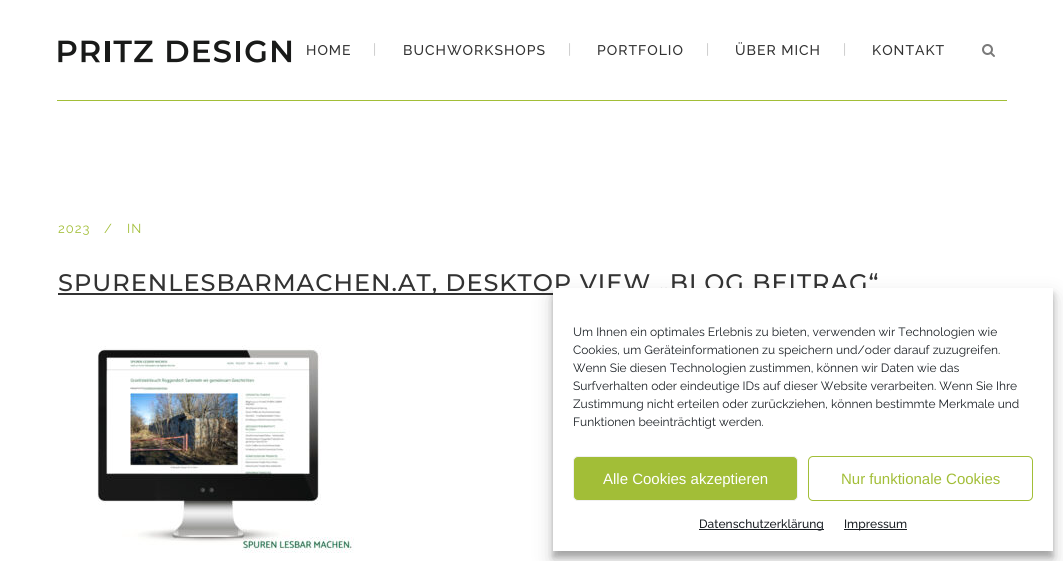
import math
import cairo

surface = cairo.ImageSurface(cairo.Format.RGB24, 1063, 561)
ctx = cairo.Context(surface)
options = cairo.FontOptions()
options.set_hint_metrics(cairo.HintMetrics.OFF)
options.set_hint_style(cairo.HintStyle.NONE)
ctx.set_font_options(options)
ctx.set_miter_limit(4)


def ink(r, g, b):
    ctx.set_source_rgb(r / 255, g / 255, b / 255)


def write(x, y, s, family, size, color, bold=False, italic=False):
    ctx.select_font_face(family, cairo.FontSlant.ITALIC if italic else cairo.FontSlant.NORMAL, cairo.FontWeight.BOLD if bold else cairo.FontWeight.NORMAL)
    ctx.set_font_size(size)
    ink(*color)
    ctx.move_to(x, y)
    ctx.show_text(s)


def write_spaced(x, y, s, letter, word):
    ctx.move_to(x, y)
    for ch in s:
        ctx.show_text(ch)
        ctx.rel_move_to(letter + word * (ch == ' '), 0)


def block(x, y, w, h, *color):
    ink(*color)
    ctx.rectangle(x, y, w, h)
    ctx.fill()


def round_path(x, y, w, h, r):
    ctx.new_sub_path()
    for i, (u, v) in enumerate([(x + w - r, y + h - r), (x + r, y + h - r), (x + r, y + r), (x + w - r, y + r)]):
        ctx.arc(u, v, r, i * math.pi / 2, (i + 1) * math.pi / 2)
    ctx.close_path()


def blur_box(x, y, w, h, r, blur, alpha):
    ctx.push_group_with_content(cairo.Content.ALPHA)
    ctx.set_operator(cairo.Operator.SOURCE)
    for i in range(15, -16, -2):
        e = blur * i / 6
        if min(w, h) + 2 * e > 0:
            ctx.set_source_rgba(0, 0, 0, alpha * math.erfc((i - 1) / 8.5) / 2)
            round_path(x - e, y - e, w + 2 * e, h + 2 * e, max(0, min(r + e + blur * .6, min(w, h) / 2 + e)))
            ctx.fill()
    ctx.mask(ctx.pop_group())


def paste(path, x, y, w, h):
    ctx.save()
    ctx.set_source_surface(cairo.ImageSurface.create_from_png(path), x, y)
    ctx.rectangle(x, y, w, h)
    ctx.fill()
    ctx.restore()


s1 = dict(family="Raleway Thin", size=14, color=(196, 196, 196))
s2 = dict(family="Raleway Thin", size=12, color=(25, 30, 35))
s3 = dict(family="Liberation Sans", size=15, color=(255, 255, 255))
s4 = dict(family="Liberation Sans", size=15, color=(162, 190, 55))
s5 = dict(family="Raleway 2 Thin", size=12, color=(25, 30, 35))

ink(255, 255, 255)
ctx.paint()
block(57, 100, 950, 1, 162, 190, 55)
paste("pic1.png", 58, 40, 234, 23)
ctx.select_font_face("Raleway 2 Thin")
ctx.set_font_size(14)
ink(51, 51, 51)
write_spaced(306, 55, "HOME", 1, 0)
write(373, 54, "|", **s1)
ctx.select_font_face("Raleway 2 Thin")
ink(51, 51, 51)
write_spaced(403, 55, "BUCHWORKSHOPS", 1, 0)
write(568, 54, "|", **s1)
ctx.select_font_face("Raleway 2 Thin")
ink(51, 51, 51)
write_spaced(597, 55, "PORTFOLIO", 1, 0)
write(706, 54, "|", **s1)
ctx.select_font_face("Raleway 2 Thin")
ink(51, 51, 51)
write_spaced(735, 55, "ÜBER MICH", 1, 0)
write(843, 54, "|", **s1)
ctx.select_font_face("Raleway 2 Thin")
ink(51, 51, 51)
write_spaced(872, 55, "KONTAKT", 1, 0)
paste("pic2.png", 982, 44, 13, 13)
ctx.select_font_face("Raleway Thin")
ctx.set_font_size(13)
ink(162, 190, 55)
write_spaced(58, 233, "2023", 1, 0)
write_spaced(104, 233, "/", 1, 0)
write_spaced(127, 233, "IN", 1, 0)
block(58, 293, 495, 2, 51, 51, 51)
ctx.select_font_face("Montserrat Thin")
ctx.set_font_size(24)
write_spaced(58, 291, "SPURENLESBARMACHEN.AT, DESKTOP VIEW „BLOG BEITRAG“", 1, 0)
paste("pic3.png", 97, 345, 257, 208)
ink(0, 0, 0)
blur_box(553, 294, 500, 263, 0, 3, 0.23)
blur_box(553, 298, 500, 263, 0, 10, 0.19)
block(553, 288, 500, 263, 255, 255, 255)
write(573, 336, "Um Ihnen ein optimales Erlebnis zu bieten, verwenden wir Technologien wie", **s2)
write(573, 354, "Cookies, um Geräteinformationen zu speichern und/oder darauf zuzugreifen.", **s2)
write(573, 372, "Wenn Sie diesen Technologien zustimmen, können wir Daten wie das", **s2)
write(573, 390, "Surfverhalten oder eindeutige IDs auf dieser Website verarbeiten. Wenn Sie Ihre", **s2)
write(573, 408, "Zustimmung nicht erteilen oder zurückziehen, können bestimmte Merkmale und", **s2)
write(573, 426, "Funktionen beeinträchtigt werden.", **s2)
ink(162, 190, 55)
round_path(573.5, 456.5, 224, 44, 4.5)
ctx.fill_preserve()
ink(241, 241, 241)
ctx.set_line_width(1)
ctx.stroke()
write(603, 484, "Alle Cookies akzeptieren", **s3)
round_path(808.5, 456.5, 224, 44, 4.5)
ink(162, 190, 55)
ctx.stroke()
write(841, 484, "Nur funktionale Cookies", **s4)
block(699, 529, 125, 1, 25, 30, 35)
write(699, 528, "Datenschutzerklärung", **s5)
block(844, 529, 63, 1, 25, 30, 35)
write(844, 528, "Impressum", **s5)
surface.write_to_png("screenshot.png")
